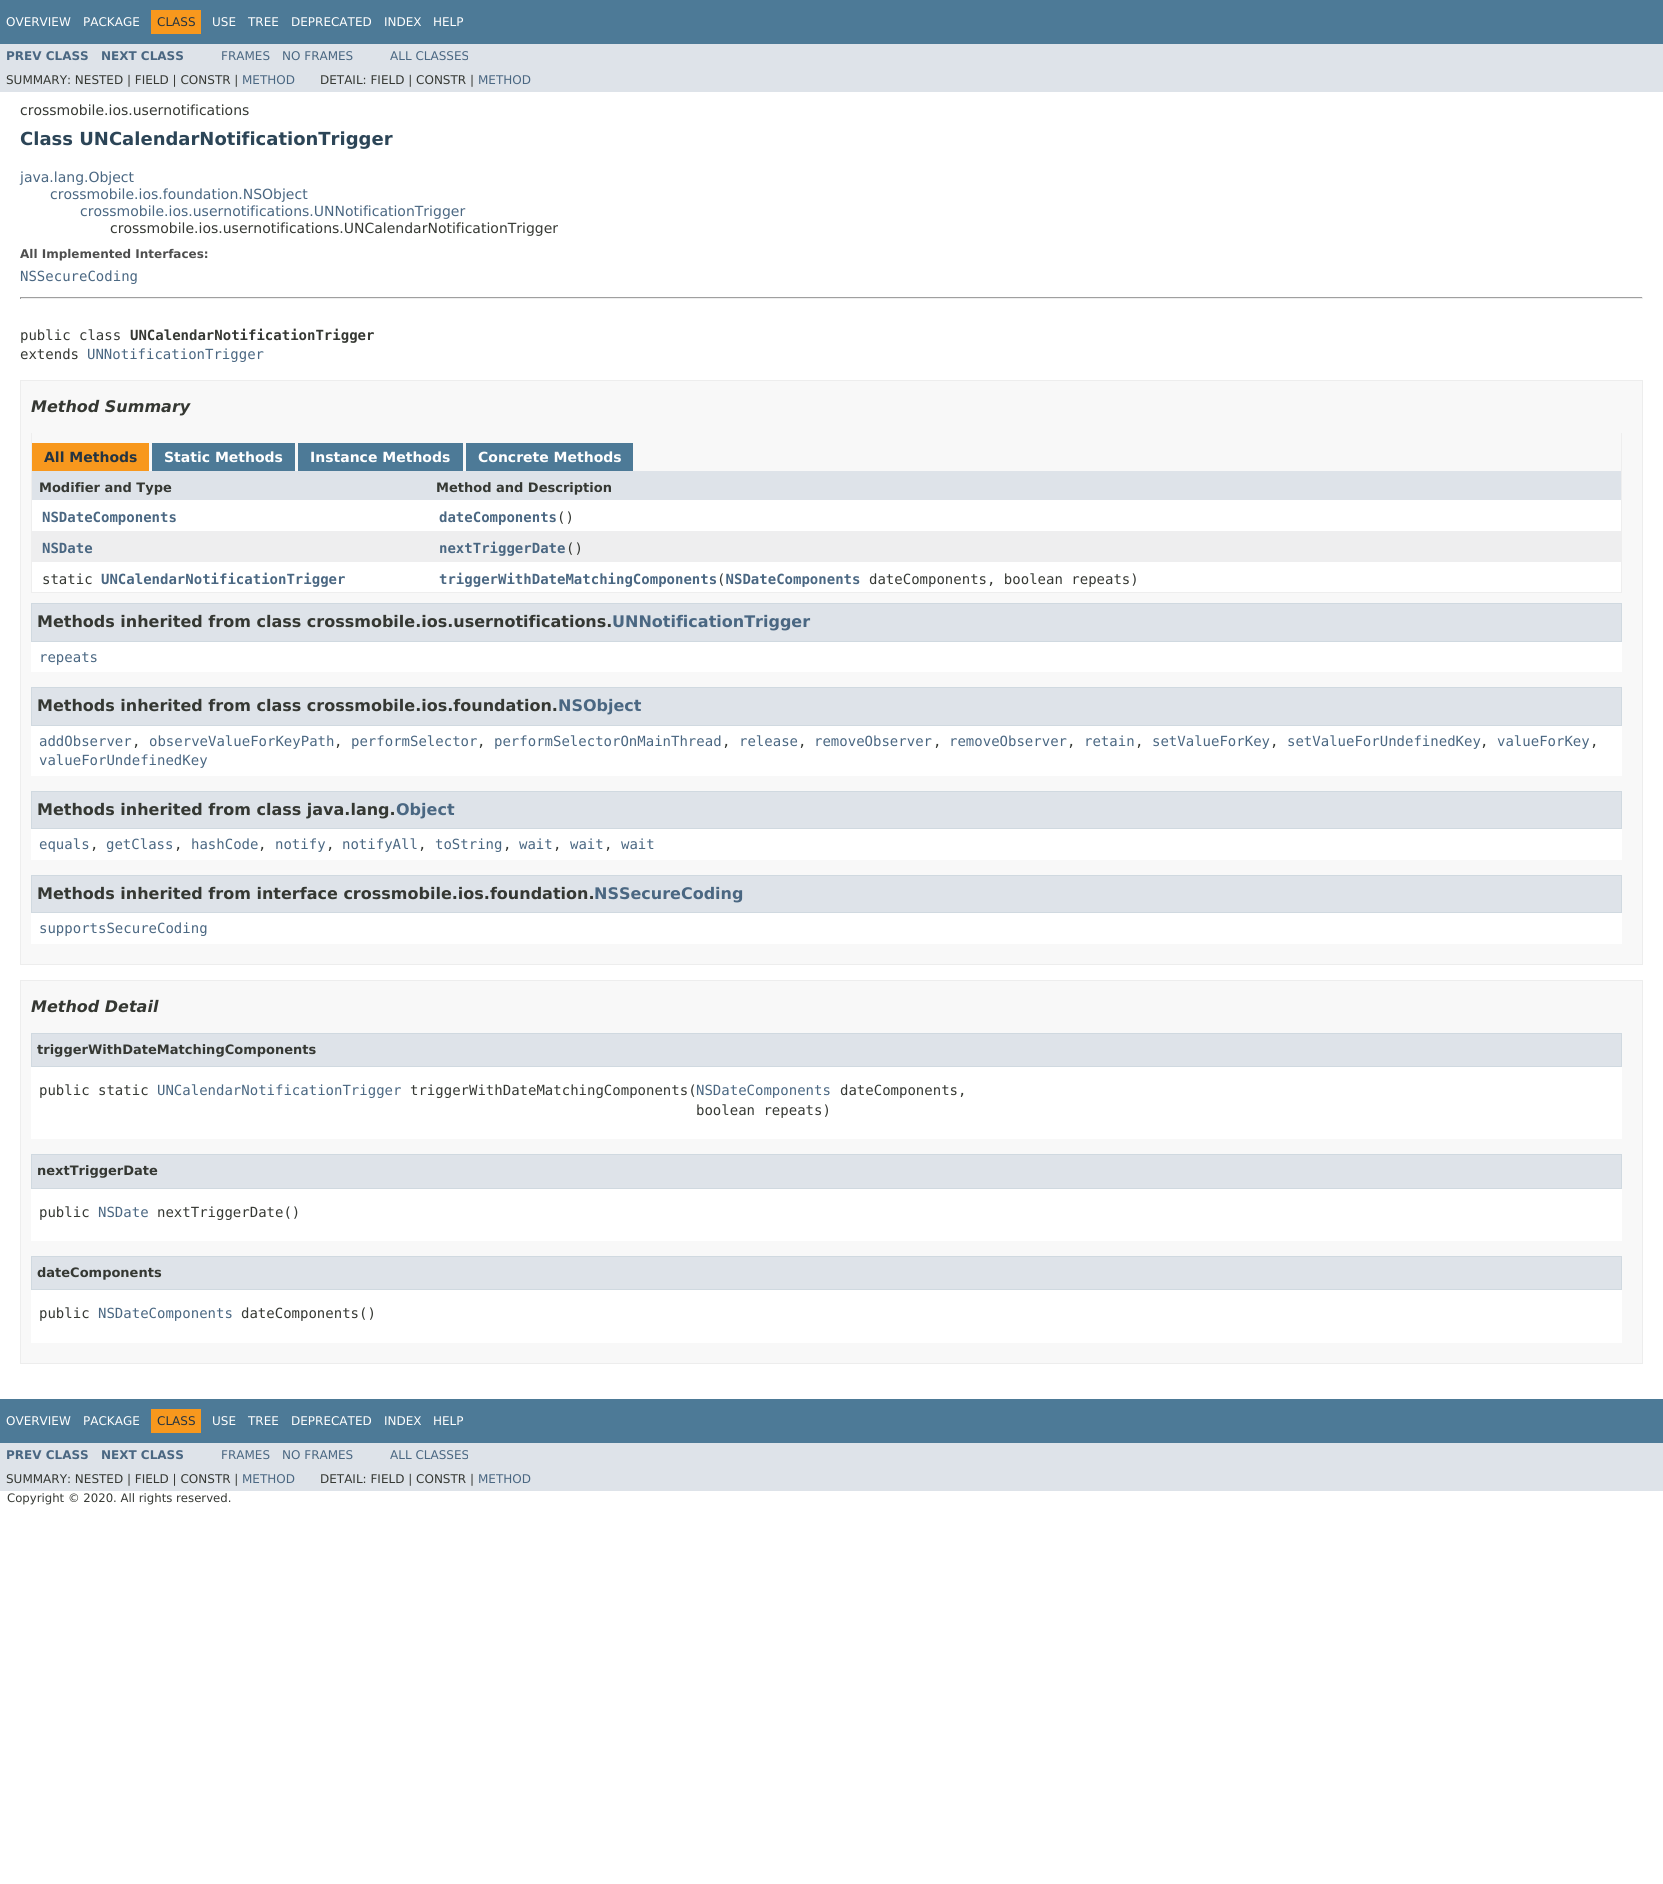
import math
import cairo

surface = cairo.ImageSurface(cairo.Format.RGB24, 1663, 1884)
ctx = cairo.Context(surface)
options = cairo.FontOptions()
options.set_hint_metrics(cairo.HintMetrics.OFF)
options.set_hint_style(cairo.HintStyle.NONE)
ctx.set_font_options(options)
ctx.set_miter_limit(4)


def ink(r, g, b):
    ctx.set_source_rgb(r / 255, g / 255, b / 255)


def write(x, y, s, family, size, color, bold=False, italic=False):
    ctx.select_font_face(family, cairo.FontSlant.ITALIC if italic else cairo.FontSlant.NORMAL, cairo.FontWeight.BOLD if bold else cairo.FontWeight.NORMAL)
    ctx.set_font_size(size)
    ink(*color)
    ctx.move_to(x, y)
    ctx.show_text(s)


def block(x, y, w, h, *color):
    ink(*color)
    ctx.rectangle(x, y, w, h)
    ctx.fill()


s1 = dict(family="DejaVu Sans", size=12, color=(255, 255, 255))
s2 = dict(family="DejaVu Sans", size=12, color=(37, 52, 65))
s3 = dict(family="DejaVu Sans", size=12, color=(74, 103, 130), bold=True)
s4 = dict(family="DejaVu Sans", size=12, color=(74, 103, 130))
s5 = dict(family="DejaVu Sans", size=12, color=(53, 56, 51))
s6 = dict(family="DejaVu Sans", size=14, color=(53, 56, 51))
s7 = dict(family="DejaVu Sans", size=18, color=(44, 69, 87), bold=True)
s8 = dict(family="DejaVu Sans", size=14, color=(74, 103, 130))
s9 = dict(family="DejaVu Sans", size=12, color=(78, 78, 78), bold=True)
s10 = dict(family="DejaVu Sans Mono", size=14, color=(74, 103, 130))
s11 = dict(family="DejaVu Sans Mono", size=14, color=(53, 56, 51))
s12 = dict(family="DejaVu Sans Mono", size=14, color=(53, 56, 51), bold=True)
s13 = dict(family="DejaVu Sans", size=16, color=(53, 56, 51), bold=True, italic=True)
s14 = dict(family="DejaVu Sans", size=14, color=(37, 52, 65), bold=True)
s15 = dict(family="DejaVu Sans", size=14, color=(255, 255, 255), bold=True)
s16 = dict(family="DejaVu Sans", size=13, color=(53, 56, 51), bold=True)
s17 = dict(family="DejaVu Sans Mono", size=14, color=(74, 103, 130), bold=True)
s18 = dict(family="DejaVu Sans", size=16, color=(53, 56, 51), bold=True)
s19 = dict(family="DejaVu Sans", size=16, color=(74, 103, 130), bold=True)
s20 = dict(family="DejaVu Sans", size=11.7, color=(53, 56, 51))

ink(255, 255, 255)
ctx.paint()
block(0, 0, 1663, 44, 77, 122, 151)
write(6, 26, "OVERVIEW", **s1)
write(83, 26, "PACKAGE", **s1)
block(151, 10, 50, 24, 248, 152, 29)
write(157, 26, "CLASS", **s2)
write(212, 26, "USE", **s1)
write(248, 26, "TREE", **s1)
write(291, 26, "DEPRECATED", **s1)
write(384, 26, "INDEX", **s1)
write(433, 26, "HELP", **s1)
block(0, 44, 1663, 48, 222, 227, 233)
write(6, 60, "PREV CLASS", **s3)
write(101, 60, "NEXT CLASS", **s3)
write(221, 60, "FRAMES", **s4)
write(282, 60, "NO FRAMES", **s4)
write(390, 60, "ALL CLASSES", **s4)
write(6, 84, "SUMMARY: NESTED | FIELD | CONSTR |", **s5)
write(242, 84, "METHOD", **s4)
write(320, 84, "DETAIL: FIELD | CONSTR |", **s5)
write(478, 84, "METHOD", **s4)
write(20, 115, "crossmobile.ios.usernotifications", **s6)
write(20, 145, "Class UNCalendarNotificationTrigger", **s7)
write(20, 182, "java.lang.Object", **s8)
write(50, 199, "crossmobile.ios.foundation.NSObject", **s8)
write(80, 216, "crossmobile.ios.usernotifications.UNNotificationTrigger", **s8)
write(110, 233, "crossmobile.ios.usernotifications.UNCalendarNotificationTrigger", **s6)
write(20, 258, "All Implemented Interfaces:", **s9)
write(20, 281, "NSSecureCoding", **s10)
block(20, 297, 1623, 1, 159, 159, 159)
block(1642, 297, 1, 2, 238, 238, 238)
block(20, 298, 1623, 1, 238, 238, 238)
block(20, 297, 1, 2, 159, 159, 159)
write(20, 340, "public class", **s11)
write(130, 340, "UNCalendarNotificationTrigger", **s12)
write(20, 359, "extends", **s11)
write(87, 359, "UNNotificationTrigger", **s10)
ink(248, 248, 248)
ctx.rectangle(20.5, 380.5, 1622, 584)
ctx.fill_preserve()
ink(237, 237, 237)
ctx.set_line_width(1)
ctx.stroke()
write(31, 412, "Method Summary", **s13)
block(1621, 433, 1, 160, 238, 238, 238)
block(31, 592, 1591, 1, 238, 238, 238)
block(31, 433, 1, 160, 238, 238, 238)
block(32, 443, 117, 28, 248, 152, 29)
write(44, 462, "All Methods", **s14)
block(152, 443, 143, 28, 77, 122, 151)
write(164, 462, "Static Methods", **s15)
block(298, 443, 165, 28, 77, 122, 151)
write(310, 462, "Instance Methods", **s15)
block(466, 443, 167, 28, 77, 122, 151)
write(478, 462, "Concrete Methods", **s15)
block(32, 471, 1589, 29, 222, 227, 233)
write(39, 492, "Modifier and Type", **s16)
write(436, 492, "Method and Description", **s16)
block(32, 500, 1589, 31, 255, 255, 255)
write(42, 522, "NSDateComponents", **s17)
write(439, 522, "dateComponents", **s17)
write(557, 522, "()", **s11)
block(32, 531, 1589, 31, 238, 238, 239)
write(42, 553, "NSDate", **s17)
write(439, 553, "nextTriggerDate", **s17)
write(566, 553, "()", **s11)
block(32, 562, 1589, 30, 255, 255, 255)
write(42, 584, "static", **s11)
write(101, 584, "UNCalendarNotificationTrigger", **s17)
write(439, 584, "triggerWithDateMatchingComponents NSDateComponents", **s17)
write(717, 584, "(", **s11)
write(869, 584, "dateComponents, boolean repeats)", **s11)
block(31, 642, 1591, 30, 255, 255, 255)
ink(222, 227, 233)
ctx.rectangle(31.5, 603.5, 1590, 38)
ctx.fill_preserve()
ink(208, 217, 224)
ctx.stroke()
write(37, 627, "Methods inherited from class crossmobile.ios.usernotifications.", **s18)
write(612, 627, "UNNotificationTrigger", **s19)
write(39, 662, "repeats", **s10)
block(31, 726, 1591, 50, 255, 255, 255)
ink(222, 227, 233)
ctx.rectangle(31.5, 687.5, 1590, 38)
ctx.fill_preserve()
ink(208, 217, 224)
ctx.stroke()
write(37, 711, "Methods inherited from class crossmobile.ios.foundation.", **s18)
write(558, 711, "NSObject", **s19)
write(39, 746, "addObserver", **s10)
write(132, 746, ",", **s11)
write(149, 746, "observeValueForKeyPath", **s10)
write(334, 746, ",", **s11)
write(351, 746, "performSelector", **s10)
write(477, 746, ",", **s11)
write(494, 746, "performSelectorOnMainThread", **s10)
write(722, 746, ",", **s11)
write(739, 746, "release", **s10)
write(798, 746, ",", **s11)
write(814, 746, "removeObserver", **s10)
write(933, 746, ",", **s11)
write(949, 746, "removeObserver", **s10)
write(1067, 746, ",", **s11)
write(1084, 746, "retain", **s10)
write(1135, 746, ",", **s11)
write(1152, 746, "setValueForKey", **s10)
write(1270, 746, ",", **s11)
write(1287, 746, "setValueForUndefinedKey", **s10)
write(1480, 746, ",", **s11)
write(1497, 746, "valueForKey", **s10)
write(1590, 746, ",", **s11)
write(39, 765, "valueForUndefinedKey", **s10)
block(31, 829, 1591, 31, 255, 255, 255)
ink(222, 227, 233)
ctx.rectangle(31.5, 791.5, 1590, 37)
ctx.fill_preserve()
ink(208, 217, 224)
ctx.stroke()
write(37, 815, "Methods inherited from class java.lang.", **s18)
write(396, 815, "Object", **s19)
write(39, 849, "equals", **s10)
write(90, 849, ",", **s11)
write(106, 849, "getClass", **s10)
write(174, 849, ",", **s11)
write(191, 849, "hashCode", **s10)
write(258, 849, ",", **s11)
write(275, 849, "notify", **s10)
write(326, 849, ",", **s11)
write(342, 849, "notifyAll", **s10)
write(418, 849, ",", **s11)
write(435, 849, "toString", **s10)
write(503, 849, ",", **s11)
write(519, 849, "wait", **s10)
write(553, 849, ",", **s11)
write(570, 849, "wait", **s10)
write(604, 849, ",", **s11)
write(621, 849, "wait", **s10)
block(31, 913, 1591, 31, 255, 255, 255)
ink(222, 227, 233)
ctx.rectangle(31.5, 875.5, 1590, 37)
ctx.fill_preserve()
ink(208, 217, 224)
ctx.stroke()
write(37, 899, "Methods inherited from interface crossmobile.ios.foundation.", **s18)
write(594, 899, "NSSecureCoding", **s19)
write(39, 933, "supportsSecureCoding", **s10)
ink(248, 248, 248)
ctx.rectangle(20.5, 980.5, 1622, 383)
ctx.fill_preserve()
ink(237, 237, 237)
ctx.stroke()
write(31, 1012, "Method Detail", **s13)
block(31, 1067, 1591, 72, 255, 255, 255)
ink(222, 227, 233)
ctx.rectangle(31.5, 1033.5, 1590, 33)
ctx.fill_preserve()
ink(208, 217, 224)
ctx.stroke()
write(37, 1054, "triggerWithDateMatchingComponents", **s16)
write(39, 1095, "public static", **s11)
write(157, 1095, "UNCalendarNotificationTrigger", **s10)
write(410, 1095, "triggerWithDateMatchingComponents(", **s11)
write(696, 1095, "NSDateComponents", **s10)
write(840, 1095, "dateComponents,", **s11)
write(696, 1115, "boolean repeats)", **s11)
block(31, 1189, 1591, 52, 255, 255, 255)
ink(222, 227, 233)
ctx.rectangle(31.5, 1154.5, 1590, 34)
ctx.fill_preserve()
ink(208, 217, 224)
ctx.stroke()
write(37, 1175, "nextTriggerDate", **s16)
write(39, 1217, "public", **s11)
write(98, 1217, "NSDate", **s10)
write(157, 1217, "nextTriggerDate()", **s11)
block(31, 1290, 1591, 53, 255, 255, 255)
ink(222, 227, 233)
ctx.rectangle(31.5, 1256.5, 1590, 33)
ctx.fill_preserve()
ink(208, 217, 224)
ctx.stroke()
write(37, 1277, "dateComponents", **s16)
write(39, 1318, "public", **s11)
write(98, 1318, "NSDateComponents", **s10)
write(241, 1318, "dateComponents()", **s11)
block(0, 1399, 1663, 44, 77, 122, 151)
write(6, 1425, "OVERVIEW", **s1)
write(83, 1425, "PACKAGE", **s1)
block(151, 1409, 50, 24, 248, 152, 29)
write(157, 1425, "CLASS", **s2)
write(212, 1425, "USE", **s1)
write(248, 1425, "TREE", **s1)
write(291, 1425, "DEPRECATED", **s1)
write(384, 1425, "INDEX", **s1)
write(433, 1425, "HELP", **s1)
block(0, 1443, 1663, 48, 222, 227, 233)
write(6, 1459, "PREV CLASS", **s3)
write(101, 1459, "NEXT CLASS", **s3)
write(221, 1459, "FRAMES", **s4)
write(282, 1459, "NO FRAMES", **s4)
write(390, 1459, "ALL CLASSES", **s4)
write(6, 1483, "SUMMARY: NESTED | FIELD | CONSTR |", **s5)
write(242, 1483, "METHOD", **s4)
write(320, 1483, "DETAIL: FIELD | CONSTR |", **s5)
write(478, 1483, "METHOD", **s4)
write(7, 1502, "Copyright © 2020. All rights reserved.", **s20)
surface.write_to_png("screenshot.png")
